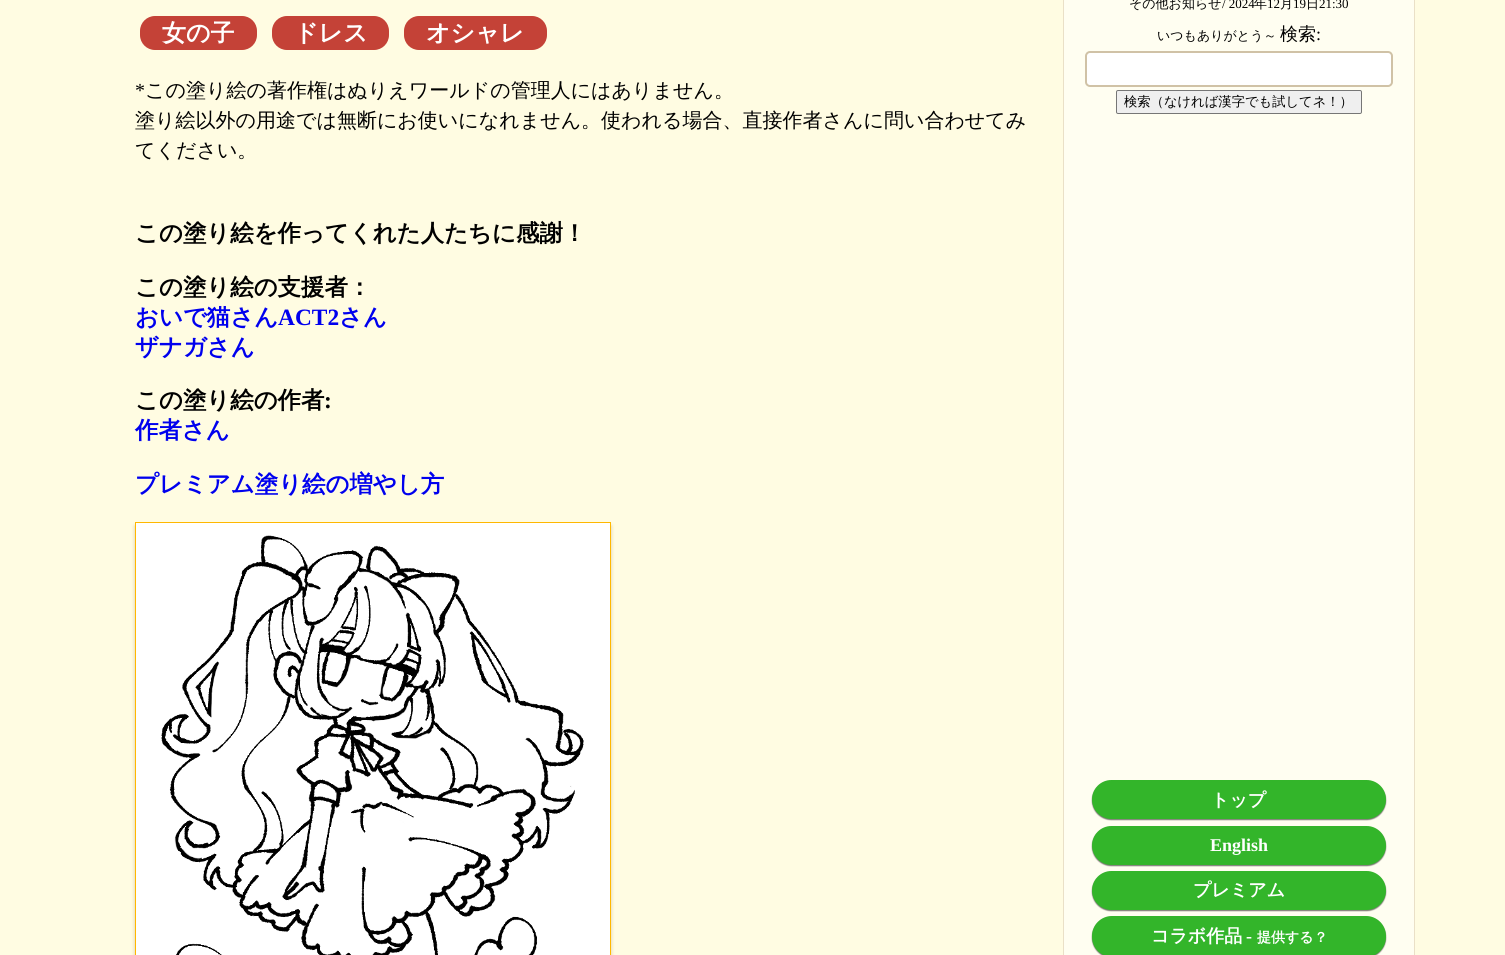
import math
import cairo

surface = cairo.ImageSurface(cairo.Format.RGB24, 1505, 955)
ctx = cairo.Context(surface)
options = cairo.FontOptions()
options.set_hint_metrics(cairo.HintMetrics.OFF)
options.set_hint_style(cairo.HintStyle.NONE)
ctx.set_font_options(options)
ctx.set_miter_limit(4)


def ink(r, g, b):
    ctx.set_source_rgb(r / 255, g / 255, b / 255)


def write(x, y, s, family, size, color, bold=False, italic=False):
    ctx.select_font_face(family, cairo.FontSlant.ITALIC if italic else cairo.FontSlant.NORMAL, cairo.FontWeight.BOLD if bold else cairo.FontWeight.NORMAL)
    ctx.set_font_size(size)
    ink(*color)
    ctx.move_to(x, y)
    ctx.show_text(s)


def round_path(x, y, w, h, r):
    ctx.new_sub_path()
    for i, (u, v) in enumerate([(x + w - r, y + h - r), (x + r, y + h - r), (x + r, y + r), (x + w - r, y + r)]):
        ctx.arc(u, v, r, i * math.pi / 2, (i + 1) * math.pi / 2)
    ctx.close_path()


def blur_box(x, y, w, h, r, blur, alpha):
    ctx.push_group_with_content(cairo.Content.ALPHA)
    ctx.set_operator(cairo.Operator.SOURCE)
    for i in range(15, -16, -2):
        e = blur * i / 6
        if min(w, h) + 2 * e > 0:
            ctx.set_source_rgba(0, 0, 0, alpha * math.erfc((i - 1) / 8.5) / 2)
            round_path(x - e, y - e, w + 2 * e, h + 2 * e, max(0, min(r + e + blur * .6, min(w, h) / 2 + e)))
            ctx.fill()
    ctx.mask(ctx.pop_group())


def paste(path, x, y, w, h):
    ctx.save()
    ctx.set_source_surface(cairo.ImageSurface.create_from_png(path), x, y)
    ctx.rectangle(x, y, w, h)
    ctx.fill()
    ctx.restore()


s1 = dict(family="WenQuanYi Zen Hei", size=24, color=(255, 255, 255), bold=True)
s2 = dict(family="Liberation Serif", size=20, color=(0, 0, 0))
s3 = dict(family="WenQuanYi Zen Hei Medium", size=20, color=(0, 0, 0))
s4 = dict(family="WenQuanYi Zen Hei", size=23.4, color=(0, 0, 0), bold=True)
s5 = dict(family="WenQuanYi Zen Hei", size=23.4, color=(0, 0, 238), bold=True)
s6 = dict(family="Liberation Serif", size=23.4, color=(0, 0, 238), bold=True)
s7 = dict(family="Liberation Serif", size=23.4, color=(0, 0, 0), bold=True)
s8 = dict(family="WenQuanYi Zen Hei Medium", size=13, color=(0, 0, 0))
s9 = dict(family="Liberation Serif", size=13, color=(0, 0, 0))
s10 = dict(family="WenQuanYi Zen Hei Medium", size=18, color=(0, 0, 0))
s11 = dict(family="Liberation Serif", size=18, color=(0, 0, 0))
s12 = dict(family="WenQuanYi Zen Hei Medium", size=13.3, color=(0, 0, 0))
s13 = dict(family="WenQuanYi Zen Hei", size=18, color=(255, 255, 255), bold=True)
s14 = dict(family="Liberation Serif", size=18, color=(255, 255, 255), bold=True)
s15 = dict(family="WenQuanYi Zen Hei", size=14, color=(255, 255, 255), bold=True)

ink(255, 252, 226)
ctx.paint()
ink(196, 66, 55)
round_path(140, 16, 117, 34, 15)
ctx.fill()
write(162, 41, "女の子", **s1)
ink(196, 66, 55)
round_path(272, 16, 117, 34, 15)
ctx.fill()
write(294, 41, "ドレス", **s1)
ink(196, 66, 55)
round_path(404, 16, 143, 34, 15)
ctx.fill()
write(426, 41, "オシャレ", **s1)
write(135, 97, "*", **s2)
write(145, 97, "この塗り絵の著作権はぬりえワールドの管理人にはありません。", **s3)
write(135, 127, "塗り絵以外の用途では無断にお使いになれません。使われる場合、直接作者さんに問い合わせてみ", **s3)
write(135, 157, "てください。", **s3)
write(135, 241, "この塗り絵を作ってくれた人たちに感謝！", **s4)
write(135, 295, "この塗り絵の支援者：", **s4)
write(135, 325, "おいで猫さん", **s5)
write(278, 325, "ACT2", **s6)
write(339, 325, "さん", **s5)
write(135, 355, "ザナガさん", **s5)
write(135, 408, "この塗り絵の作者", **s4)
write(324, 408, ":", **s7)
write(135, 438, "作者さん", **s5)
write(135, 492, "プレミアム塗り絵の増やし方", **s5)
ink(125, 79, 0)
blur_box(135, 526, 476, 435, 0, 2, 0.28)
ink(255, 255, 255)
ctx.rectangle(135.5, 522.5, 475, 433)
ctx.fill_preserve()
ink(255, 183, 0)
ctx.set_line_width(1)
ctx.stroke()
paste("pic1.png", 161, 535, 423, 420)
ink(255, 254, 241)
ctx.rectangle(1063.5, -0.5, 351, 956)
ctx.fill_preserve()
ink(234, 224, 199)
ctx.stroke()
write(1129, 8, "その他お知らせ", **s8)
write(1222, 8, "/ 2024", **s9)
write(1254, 8, "年", **s8)
write(1267, 8, "12", **s9)
write(1280, 8, "月", **s8)
write(1293, 8, "19", **s9)
write(1306, 8, "日", **s8)
write(1319, 8, "21:30", **s9)
write(1157, 40, "いつもありがとう～", **s8)
write(1280, 40, "検索", **s10)
write(1316, 40, ":", **s11)
ink(255, 255, 255)
round_path(1086, 52, 306, 34, 4)
ctx.fill_preserve()
ink(208, 194, 166)
ctx.set_line_width(2)
ctx.stroke()
ink(239, 239, 239)
round_path(1116.5, 90.5, 245, 23, 1.5)
ctx.fill_preserve()
ink(118, 118, 118)
ctx.set_line_width(1)
ctx.stroke()
write(1124, 106, "検索（なければ漢字でも試してネ！）", **s12)
ink(0, 0, 0)
blur_box(1092, 781, 294, 39, 19.5, 0.5, 0.53)
ink(51, 181, 42)
round_path(1092, 780, 294, 39, 19.5)
ctx.fill()
write(1211, 806, "トップ", **s13)
ink(0, 0, 0)
blur_box(1092, 827, 294, 39, 19.5, 0.5, 0.53)
ink(51, 181, 42)
round_path(1092, 826, 294, 39, 19.5)
ctx.fill()
write(1210, 851, "English", **s14)
ink(0, 0, 0)
blur_box(1092, 872, 294, 39, 19.5, 0.5, 0.53)
ink(51, 181, 42)
round_path(1092, 871, 294, 39, 19.5)
ctx.fill()
write(1193, 896, "プレミアム", **s13)
ink(0, 0, 0)
blur_box(1092, 917, 294, 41, 20, 0.5, 0.53)
ink(51, 181, 42)
round_path(1092, 916, 294, 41, 20)
ctx.fill()
write(1151, 942, "コラボ作品", **s13)
write(1246, 942, "-", **s14)
write(1257, 942, "提供する？", **s15)
surface.write_to_png("screenshot.png")
